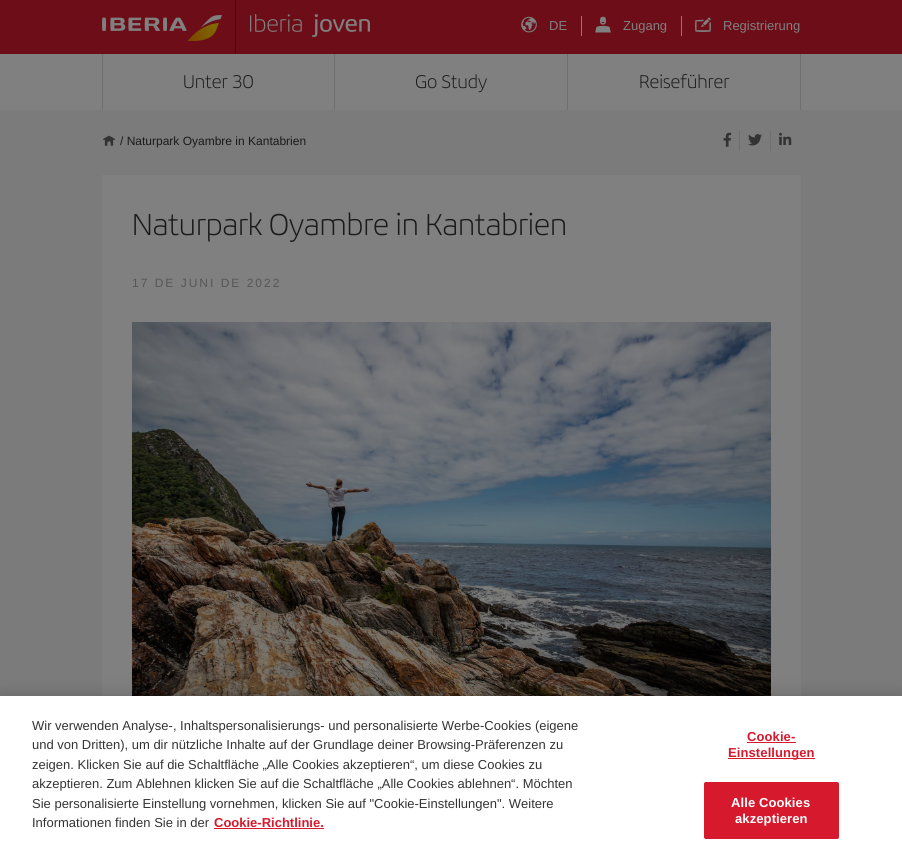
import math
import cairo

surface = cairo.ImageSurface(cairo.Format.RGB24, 902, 856)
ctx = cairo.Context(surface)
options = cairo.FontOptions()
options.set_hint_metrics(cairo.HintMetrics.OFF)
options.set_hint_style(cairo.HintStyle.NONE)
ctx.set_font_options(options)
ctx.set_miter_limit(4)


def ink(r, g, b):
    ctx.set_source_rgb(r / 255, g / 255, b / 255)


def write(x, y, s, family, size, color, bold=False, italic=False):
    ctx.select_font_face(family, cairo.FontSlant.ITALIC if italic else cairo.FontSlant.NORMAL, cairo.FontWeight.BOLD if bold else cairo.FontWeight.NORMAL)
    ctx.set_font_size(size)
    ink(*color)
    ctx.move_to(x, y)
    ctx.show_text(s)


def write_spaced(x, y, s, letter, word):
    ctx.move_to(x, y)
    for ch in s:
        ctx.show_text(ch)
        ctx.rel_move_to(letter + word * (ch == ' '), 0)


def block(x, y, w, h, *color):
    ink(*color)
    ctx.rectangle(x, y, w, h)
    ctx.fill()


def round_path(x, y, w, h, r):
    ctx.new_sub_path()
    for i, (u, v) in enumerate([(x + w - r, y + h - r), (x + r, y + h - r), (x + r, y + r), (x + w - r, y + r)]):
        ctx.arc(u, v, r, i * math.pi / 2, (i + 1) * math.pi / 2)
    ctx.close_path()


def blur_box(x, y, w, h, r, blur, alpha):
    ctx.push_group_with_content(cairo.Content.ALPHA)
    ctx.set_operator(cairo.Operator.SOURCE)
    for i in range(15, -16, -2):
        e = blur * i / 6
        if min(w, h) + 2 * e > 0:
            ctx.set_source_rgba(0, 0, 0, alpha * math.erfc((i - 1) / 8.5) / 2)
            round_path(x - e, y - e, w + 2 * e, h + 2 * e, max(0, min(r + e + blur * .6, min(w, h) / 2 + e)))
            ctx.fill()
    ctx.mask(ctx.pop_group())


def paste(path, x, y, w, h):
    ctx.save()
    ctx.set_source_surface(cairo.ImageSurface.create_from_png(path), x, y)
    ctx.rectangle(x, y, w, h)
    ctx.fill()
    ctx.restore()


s1 = dict(family="Liberation Sans", size=13, color=(128, 128, 128))
s2 = dict(family="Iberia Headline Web", size=20, color=(26, 26, 26))
s3 = dict(family="Liberation Sans", size=12, color=(26, 26, 26))
s4 = dict(family="Iberia Headline Web", size=32.75, color=(26, 26, 26))
s5 = dict(family="Liberation Sans", size=13, color=(51, 51, 51))
s6 = dict(family="Liberation Sans", size=13, color=(215, 25, 45), bold=True)

ink(123, 123, 123)
ctx.paint()
block(0, 0, 902, 54, 108, 13, 23)
paste("pic1.png", 102, 15, 120, 26)
block(235, 0, 1, 54, 76, 9, 16)
paste("pic2.png", 250, 14, 120, 23)
paste("pic3.png", 521, 16, 16, 17)
write(549, 30, "DE", **s1)
block(581, 16, 1, 20, 128, 128, 128)
paste("pic4.png", 595, 16, 16, 17)
write(623, 30, "Zugang", **s1)
block(681, 16, 1, 20, 128, 128, 128)
paste("pic5.png", 695, 17, 16, 15)
write(723, 30, "Registrierung", **s1)
block(0, 54, 902, 56, 128, 128, 128)
block(334, 54, 1, 56, 111, 111, 111)
block(102, 54, 1, 56, 111, 111, 111)
write(183, 88, "Unter 30", **s2)
block(567, 54, 1, 56, 111, 111, 111)
write(415, 88, "Go Study", **s2)
block(800, 54, 1, 56, 111, 111, 111)
write(639, 88, "Reiseführer", **s2)
paste("pic6.png", 103, 135, 12, 11)
write(120, 145, "/ Naturpark Oyambre in Kantabrien", **s3)
paste("pic7.png", 723, 132, 9, 15)
block(739, 131, 1, 20, 111, 111, 111)
paste("pic8.png", 748, 134, 14, 12)
block(770, 131, 1, 20, 111, 111, 111)
paste("pic9.png", 779, 132, 13, 13)
block(102, 175, 699, 521, 128, 128, 128)
write(132, 235, "Naturpark Oyambre in Kantabrien", **s4)
ctx.select_font_face("Liberation Sans")
ctx.set_font_size(12)
ink(86, 86, 86)
write_spaced(132, 287, "17 DE JUNI DE 2022", 2, 0)
paste("pic10.png", 132, 322, 639, 374)
ink(0, 0, 0)
blur_box(0, 696, 902, 160, 0, 9, 0.2)
block(0, 696, 902, 160, 255, 255, 255)
write(32, 730, "Wir verwenden Analyse-, Inhaltspersonalisierungs- und personalisierte Werbe-Cookies (eigene", **s5)
write(32, 749, "und von Dritten), um dir nützliche Inhalte auf der Grundlage deiner Browsing-Präferenzen zu", **s5)
write(32, 769, "zeigen. Klicken Sie auf die Schaltfläche „Alle Cookies akzeptieren“, um diese Cookies zu", **s5)
write(32, 788, "akzeptieren. Zum Ablehnen klicken Sie auf die Schaltfläche „Alle Cookies ablehnen“. Möchten", **s5)
write(32, 808, "Sie personalisierte Einstellung vornehmen, klicken Sie auf \"Cookie-Einstellungen\". Weitere", **s5)
write(32, 827, "Informationen finden Sie in der", **s5)
write(214, 827, "Cookie-Richtlinie.", **s6)
block(214, 828, 110, 1, 215, 25, 45)
write_spaced(747, 741, "Cookie-", 0.1, 0)
block(747, 742, 49, 1, 215, 25, 45)
block(728, 758, 87, 1, 215, 25, 45)
write_spaced(728, 757, "Einstellungen", 0.1, 0)
round_path(704.5, 782.5, 134, 56, 1.5)
ctx.fill_preserve()
ctx.set_line_width(1)
ctx.stroke()
ink(255, 255, 255)
write_spaced(731, 807, "Alle Cookies", 0.1, 0)
write_spaced(735, 823, "akzeptieren", 0.1, 0)
surface.write_to_png("screenshot.png")
